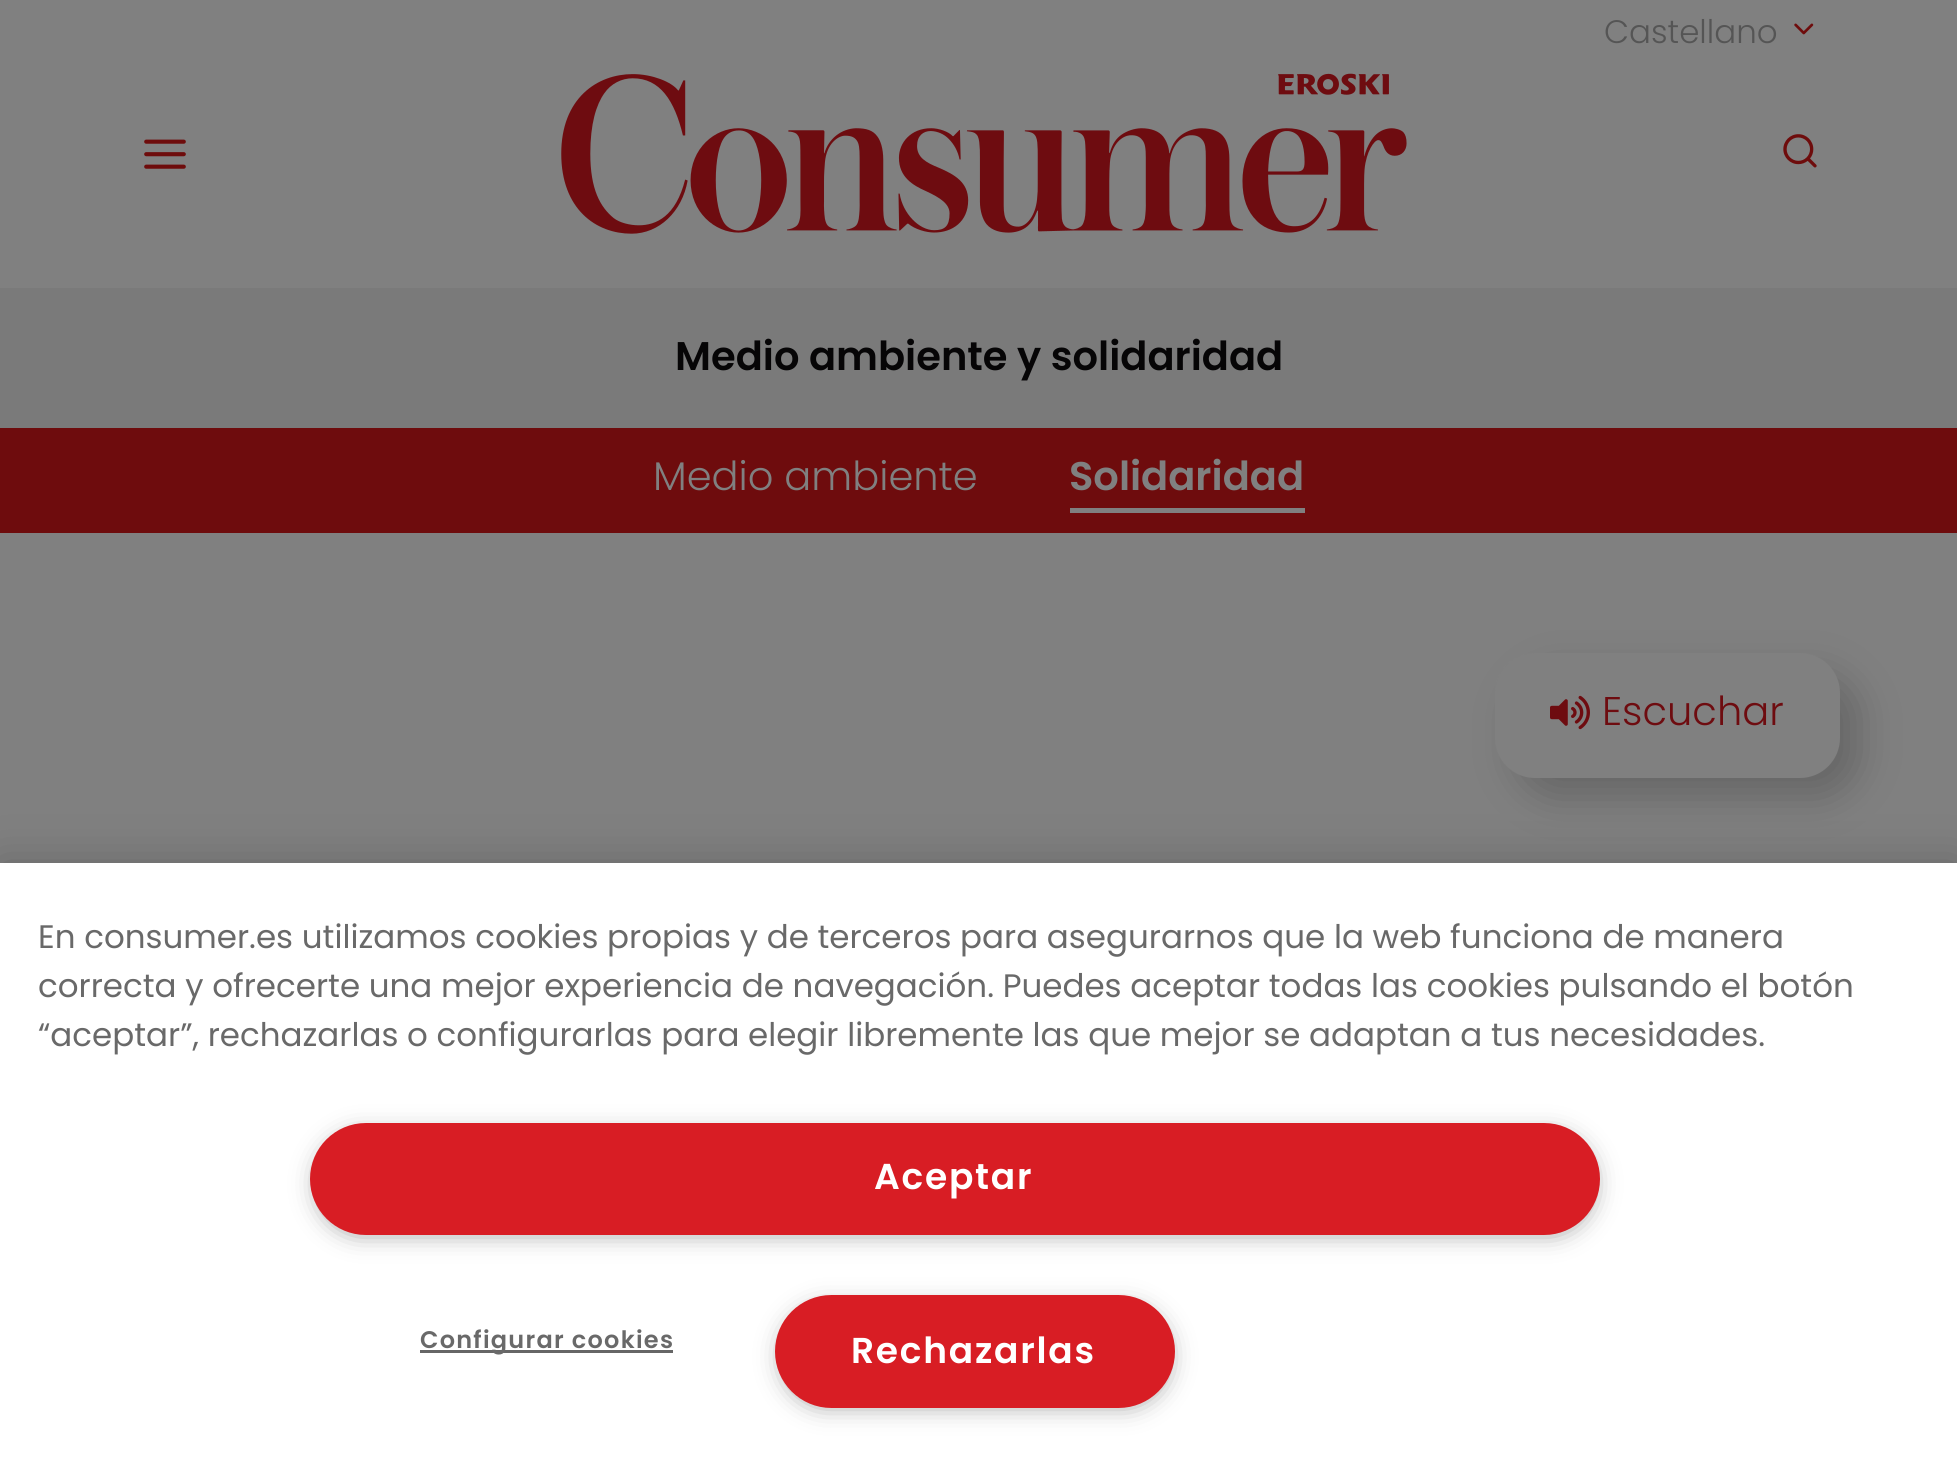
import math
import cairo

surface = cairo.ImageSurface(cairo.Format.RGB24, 1957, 1457)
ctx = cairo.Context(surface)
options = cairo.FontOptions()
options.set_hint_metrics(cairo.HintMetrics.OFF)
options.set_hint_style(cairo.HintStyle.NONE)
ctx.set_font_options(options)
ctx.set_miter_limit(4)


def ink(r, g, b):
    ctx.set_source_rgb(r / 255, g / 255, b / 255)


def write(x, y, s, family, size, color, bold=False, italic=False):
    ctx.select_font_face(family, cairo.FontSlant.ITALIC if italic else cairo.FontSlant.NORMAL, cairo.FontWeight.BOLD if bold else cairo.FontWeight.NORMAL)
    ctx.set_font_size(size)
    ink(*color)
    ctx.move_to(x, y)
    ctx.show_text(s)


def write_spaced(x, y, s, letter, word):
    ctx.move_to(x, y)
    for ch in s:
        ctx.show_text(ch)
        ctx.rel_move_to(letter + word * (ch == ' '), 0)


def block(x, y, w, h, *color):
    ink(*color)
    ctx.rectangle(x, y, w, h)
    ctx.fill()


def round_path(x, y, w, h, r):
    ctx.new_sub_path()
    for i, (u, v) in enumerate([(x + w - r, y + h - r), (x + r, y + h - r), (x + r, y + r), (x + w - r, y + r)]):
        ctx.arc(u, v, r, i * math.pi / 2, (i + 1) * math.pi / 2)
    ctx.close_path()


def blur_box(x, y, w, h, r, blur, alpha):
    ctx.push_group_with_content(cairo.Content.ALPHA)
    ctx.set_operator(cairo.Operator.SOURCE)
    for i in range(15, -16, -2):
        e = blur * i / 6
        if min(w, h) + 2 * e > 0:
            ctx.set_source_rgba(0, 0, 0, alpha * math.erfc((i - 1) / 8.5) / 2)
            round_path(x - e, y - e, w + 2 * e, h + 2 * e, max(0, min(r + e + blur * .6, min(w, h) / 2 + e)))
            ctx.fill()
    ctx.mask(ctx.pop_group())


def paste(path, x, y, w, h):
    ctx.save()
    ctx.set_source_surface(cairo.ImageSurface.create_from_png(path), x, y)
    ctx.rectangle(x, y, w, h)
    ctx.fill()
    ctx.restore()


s1 = dict(family="Poppins Light", size=32.5, color=(85, 85, 85))
s2 = dict(family="Poppins SemiBold", size=40, color=(6, 5, 6))
s3 = dict(family="Poppins Light", size=40, color=(128, 128, 128))
s4 = dict(family="Poppins SemiBold", size=40, color=(128, 128, 128))
s5 = dict(family="Poppins Light", size=40, color=(110, 12, 16))
s6 = dict(family="Poppins", size=32.52, color=(105, 105, 105))

ink(128, 128, 128)
ctx.paint()
write(1604, 43, "Castellano", **s1)
paste("pic1.png", 1794, 23, 20, 12)
paste("pic2.png", 144, 139, 42, 30)
paste("pic3.png", 561, 73, 846, 161)
paste("pic4.png", 1783, 134, 34, 34)
block(0, 288, 1957, 140, 122, 122, 122)
write(675, 370, "Medio ambiente y solidaridad", **s2)
block(0, 428, 1957, 105, 110, 12, 13)
write(653, 490, "Medio ambiente", **s3)
block(1070, 508, 235, 5, 128, 128, 128)
write(1069, 490, "Solidaridad", **s4)
ink(0, 0, 0)
blur_box(1515, 673, 345, 125, 40, 20, 0.2)
ink(128, 128, 128)
round_path(1495, 653, 345, 125, 40)
ctx.fill()
paste("pic5.png", 1550, 695, 40, 35)
write(1602, 725, "Escuchar", **s5)
ink(0, 0, 0)
blur_box(0, 863, 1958, 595, 0, 22.5, 0.2)
block(0, 863, 1957, 594, 255, 255, 255)
write(38, 948, "En consumer.es utilizamos cookies propias y de terceros para asegurarnos que la web funciona de manera", **s6)
write(38, 997, "correcta y ofrecerte una mejor experiencia de navegación. Puedes aceptar todas las cookies pulsando el botón", **s6)
write(38, 1046, "“aceptar”, rechazarlas o configurarlas para elegir libremente las que mejor se adaptan a tus necesidades.", **s6)
ink(153, 153, 153)
blur_box(318, 1135, 1275, 98, 49, 12.5, 1)
ink(216, 29, 36)
round_path(311.5, 1124.5, 1287, 109, 54.5)
ctx.fill_preserve()
ctx.set_line_width(3)
ctx.stroke()
ctx.select_font_face("Poppins SemiBold")
ctx.set_font_size(36)
ink(255, 255, 255)
write_spaced(874, 1189, "Aceptar", 1.75, 0)
block(420, 1350, 253, 3, 102, 102, 102)
ctx.set_font_size(24)
ink(105, 105, 105)
write_spaced(420, 1348, "Configurar cookies", 1.25, 0)
ink(153, 153, 153)
blur_box(783, 1308, 385, 97, 48.5, 12.5, 1)
ink(216, 29, 36)
round_path(776.5, 1296.5, 397, 110, 55)
ctx.fill_preserve()
ctx.stroke()
ctx.set_font_size(36)
ink(255, 255, 255)
write_spaced(851, 1363, "Rechazarlas", 1.75, 0)
surface.write_to_png("screenshot.png")
